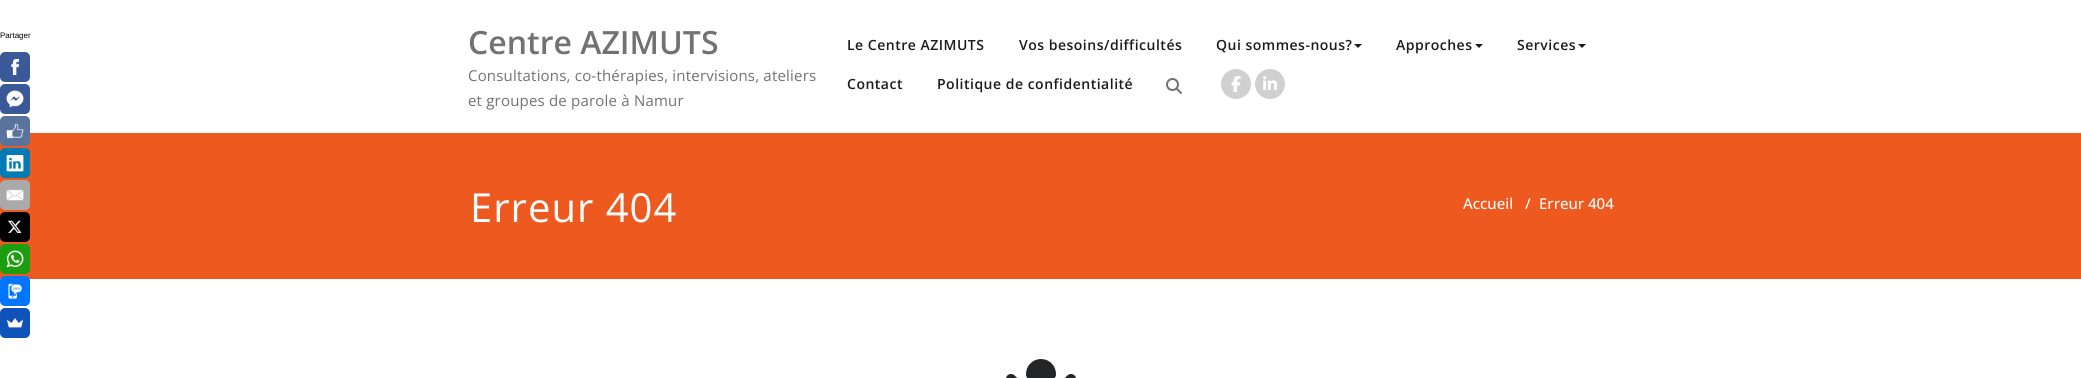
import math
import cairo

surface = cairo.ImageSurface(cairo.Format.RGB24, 2081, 378)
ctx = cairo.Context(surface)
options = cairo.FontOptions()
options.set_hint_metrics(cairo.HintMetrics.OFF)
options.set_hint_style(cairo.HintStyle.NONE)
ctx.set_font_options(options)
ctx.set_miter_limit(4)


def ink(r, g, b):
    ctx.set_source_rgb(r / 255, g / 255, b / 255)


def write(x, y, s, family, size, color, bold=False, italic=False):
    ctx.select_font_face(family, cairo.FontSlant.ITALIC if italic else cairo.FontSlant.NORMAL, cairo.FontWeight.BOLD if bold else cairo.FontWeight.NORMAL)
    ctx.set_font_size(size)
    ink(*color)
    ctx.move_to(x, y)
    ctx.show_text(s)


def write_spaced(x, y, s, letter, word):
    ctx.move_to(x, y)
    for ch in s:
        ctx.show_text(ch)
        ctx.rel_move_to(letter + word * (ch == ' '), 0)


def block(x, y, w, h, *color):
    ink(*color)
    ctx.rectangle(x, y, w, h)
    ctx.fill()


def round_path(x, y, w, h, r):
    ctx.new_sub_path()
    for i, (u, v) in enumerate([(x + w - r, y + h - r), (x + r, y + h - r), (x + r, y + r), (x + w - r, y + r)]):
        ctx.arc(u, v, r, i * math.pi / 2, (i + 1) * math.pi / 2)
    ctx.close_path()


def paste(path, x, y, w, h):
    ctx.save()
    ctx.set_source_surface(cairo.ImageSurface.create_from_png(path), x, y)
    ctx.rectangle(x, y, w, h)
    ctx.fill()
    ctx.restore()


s1 = dict(family="Liberation Sans", size=8, color=(0, 0, 0))
s2 = dict(family="Open Sans SemiBold", size=32, color=(114, 114, 114))
s3 = dict(family="Open Sans Medium", size=15, color=(255, 255, 255))

ink(255, 255, 255)
ctx.paint()
write(0, 38, "Partager", **s1)
ink(59, 89, 152)
round_path(0, 52, 30, 30, 5)
ctx.fill()
paste("pic1.png", 11, 59, 8, 16)
round_path(0, 84, 30, 30, 5)
ctx.fill()
paste("pic2.png", 6, 90, 18, 18)
block(0, 133, 2081, 146, 238, 89, 31)
ink(90, 115, 157)
round_path(0, 116, 30, 30, 5)
ctx.fill()
paste("pic3.png", 6, 123, 18, 16)
ink(0, 123, 182)
round_path(0, 148, 30, 30, 5)
ctx.fill()
paste("pic4.png", 6, 155, 18, 17)
ink(170, 170, 170)
round_path(0, 180, 30, 30, 5)
ctx.fill()
paste("pic5.png", 6, 189, 18, 12)
ink(0, 0, 0)
round_path(0, 212, 30, 30, 5)
ctx.fill()
paste("pic6.png", 7, 220, 15, 13)
ink(29, 158, 17)
round_path(0, 244, 30, 30, 5)
ctx.fill()
paste("pic7.png", 6, 250, 18, 18)
ink(0, 118, 255)
round_path(0, 276, 30, 30, 5)
ctx.fill()
paste("pic8.png", 8, 283, 14, 16)
ink(15, 82, 186)
round_path(0, 308, 30, 30, 5)
ctx.fill()
paste("pic9.png", 7, 318, 16, 10)
write(468, 54, "Centre AZIMUTS", **s2)
ctx.select_font_face("Open Sans")
ctx.set_font_size(15)
write_spaced(468, 81, "Consultations, co-thérapies, intervisions, ateliers", 0.2, 0)
write_spaced(468, 106, "et groupes de parole à Namur", 0.2, 0)
ctx.select_font_face("Open Sans SemiBold")
ctx.set_font_size(14)
ink(27, 27, 27)
write_spaced(847, 50, "Le Centre AZIMUTS", 0.5, 0)
write_spaced(1019, 50, "Vos besoins/difficultés", 0.5, 0)
write_spaced(1216, 50, "Qui sommes-nous?", 0.5, 0)
ctx.new_path()
ctx.move_to(1354, 44)
ctx.line_to(1362, 44)
ctx.line_to(1358, 48)
ctx.close_path()
ctx.fill()
write_spaced(1396, 50, "Approches", 0.5, 0)
ctx.new_path()
ctx.move_to(1475, 44)
ctx.line_to(1483, 44)
ctx.line_to(1479, 48)
ctx.close_path()
ctx.fill()
write_spaced(1517, 50, "Services", 0.5, 0)
ctx.new_path()
ctx.move_to(1578, 44)
ctx.line_to(1586, 44)
ctx.line_to(1582, 48)
ctx.close_path()
ctx.fill()
write_spaced(847, 89, "Contact", 0.5, 0)
write_spaced(937, 89, "Politique de confidentialité", 0.5, 0)
paste("pic10.png", 1166, 78, 16, 16)
ink(208, 208, 208)
ctx.arc(1236, 84, 15, 0, 2 * math.pi)
ctx.fill()
paste("pic11.png", 1231, 76, 10, 16)
ctx.arc(1270, 84, 15, 0, 2 * math.pi)
ctx.fill()
paste("pic12.png", 1263, 76, 14, 14)
ctx.select_font_face("Open Sans")
ctx.set_font_size(40)
ink(255, 255, 255)
write_spaced(470, 222, "Erreur 404", 1, 0)
write(1463, 209, "Accueil", **s3)
write(1525, 209, "/", **s3)
write(1539, 209, "Erreur 404", **s3)
paste("pic13.png", 1006, 359, 70, 19)
surface.write_to_png("screenshot.png")
